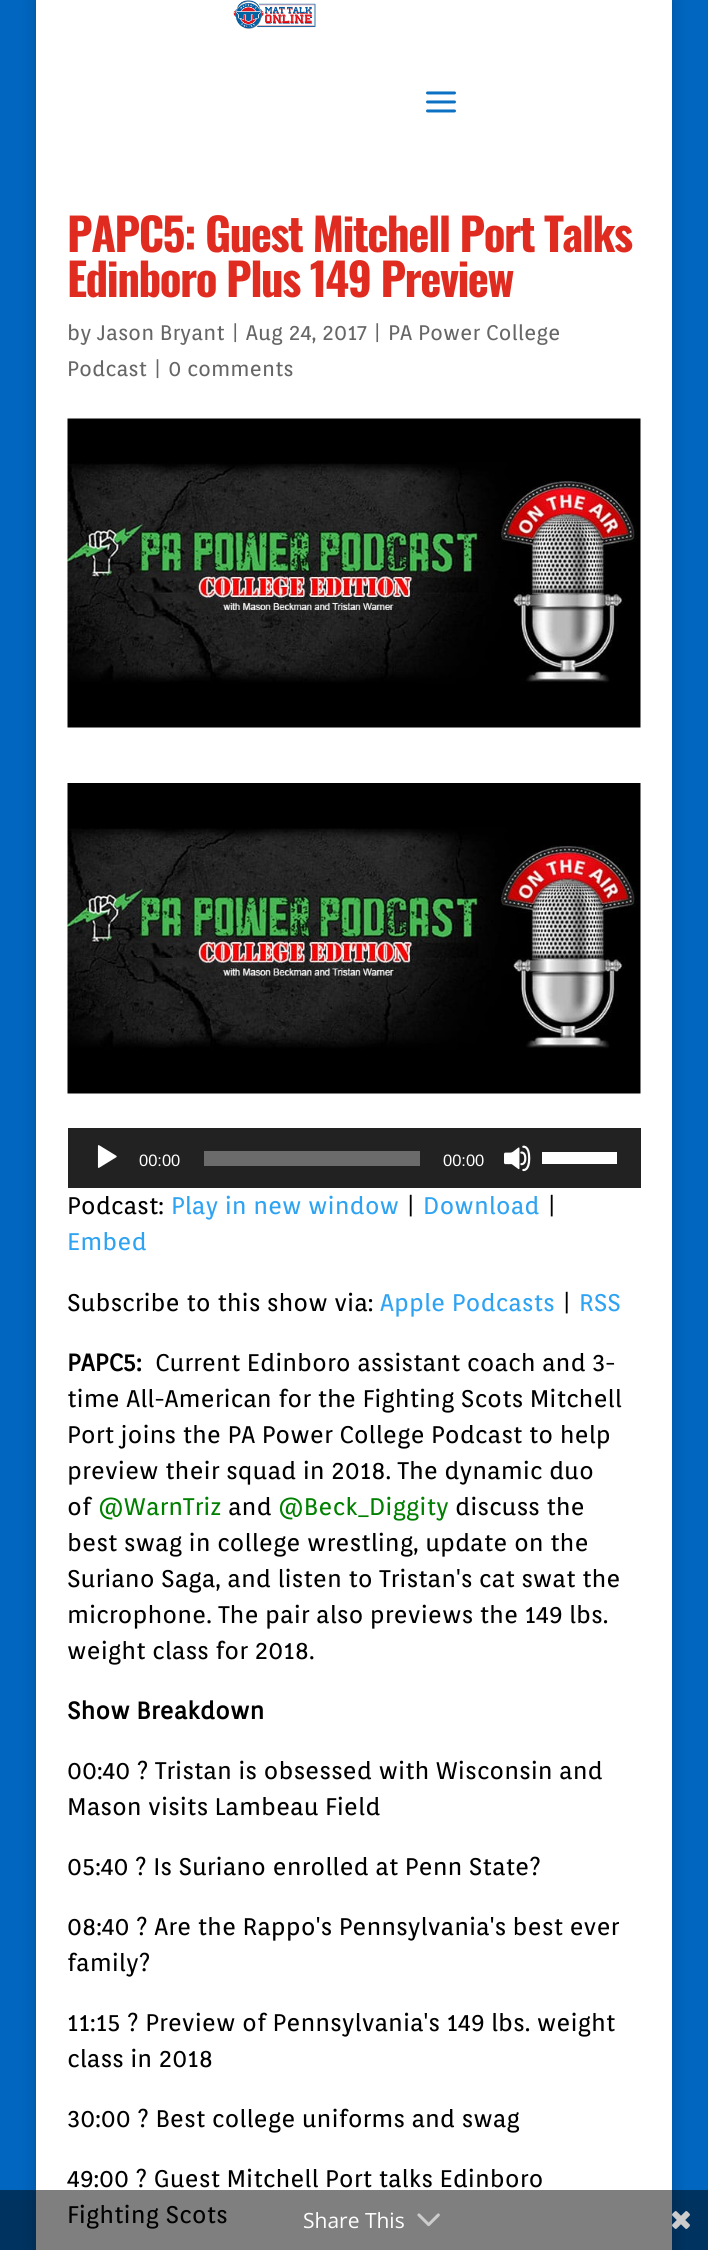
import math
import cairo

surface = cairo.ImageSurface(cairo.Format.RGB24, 708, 2250)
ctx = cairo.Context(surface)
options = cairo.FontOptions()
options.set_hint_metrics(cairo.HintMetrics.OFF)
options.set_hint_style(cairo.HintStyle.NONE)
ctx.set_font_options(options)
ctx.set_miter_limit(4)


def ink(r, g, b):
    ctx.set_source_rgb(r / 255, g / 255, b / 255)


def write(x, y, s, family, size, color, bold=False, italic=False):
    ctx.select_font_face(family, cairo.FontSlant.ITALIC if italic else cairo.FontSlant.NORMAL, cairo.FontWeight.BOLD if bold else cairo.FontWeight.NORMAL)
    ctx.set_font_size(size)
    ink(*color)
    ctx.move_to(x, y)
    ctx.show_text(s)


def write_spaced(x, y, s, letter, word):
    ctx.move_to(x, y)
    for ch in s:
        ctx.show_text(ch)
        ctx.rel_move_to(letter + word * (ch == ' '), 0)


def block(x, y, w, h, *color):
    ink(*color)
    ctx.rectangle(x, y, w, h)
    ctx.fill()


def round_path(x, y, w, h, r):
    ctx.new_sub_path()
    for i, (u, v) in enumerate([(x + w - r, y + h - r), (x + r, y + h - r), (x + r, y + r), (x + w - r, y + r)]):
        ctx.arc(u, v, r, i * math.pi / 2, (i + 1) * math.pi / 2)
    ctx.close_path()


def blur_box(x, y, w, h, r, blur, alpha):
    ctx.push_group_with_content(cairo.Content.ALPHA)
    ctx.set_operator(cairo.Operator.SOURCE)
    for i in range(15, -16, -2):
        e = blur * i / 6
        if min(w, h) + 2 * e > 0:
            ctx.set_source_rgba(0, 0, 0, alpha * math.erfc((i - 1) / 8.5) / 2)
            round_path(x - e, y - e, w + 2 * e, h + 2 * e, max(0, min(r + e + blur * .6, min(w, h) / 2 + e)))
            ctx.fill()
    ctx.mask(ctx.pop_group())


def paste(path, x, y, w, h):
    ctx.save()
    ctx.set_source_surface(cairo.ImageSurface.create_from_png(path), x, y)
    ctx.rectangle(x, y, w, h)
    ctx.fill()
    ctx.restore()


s1 = dict(family="Orienta", size=21, color=(102, 102, 102))
s2 = dict(family="Liberation Sans", size=16.5, color=(255, 255, 255))
s3 = dict(family="Orienta", size=24, color=(0, 0, 0))
s4 = dict(family="Orienta", size=24, color=(46, 163, 242))
s5 = dict(family="Orienta", size=24, color=(0, 0, 0), bold=True)
s6 = dict(family="Orienta", size=24, color=(0, 128, 0))
s7 = dict(family="Open Sans", size=21, color=(255, 255, 255))

ink(0, 102, 191)
ctx.paint()
ink(0, 0, 0)
blur_box(36, 0, 636, 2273, 0, 7.5, 0.2)
block(36, 0, 636, 2250, 255, 255, 255)
paste("pic1.png", 233, 0, 83, 29)
paste("pic2.png", 426, 91, 30, 22)
ctx.select_font_face("Oswald", cairo.FontSlant.NORMAL, cairo.FontWeight.BOLD)
ctx.set_font_size(45)
ink(224, 43, 32)
write_spaced(67, 252, "PAPC5: Guest Mitchell Port Talks", -1.5, 0)
write_spaced(67, 297, "Edinboro Plus 149 Preview", -1.5, 0)
write(67, 340, "by Jason Bryant | Aug 24, 2017 | PA Power College", **s1)
write(67, 376, "Podcast | 0 comments", **s1)
paste("pic3.png", 67, 418, 574, 310)
paste("pic4.png", 67, 783, 574, 311)
block(68, 1128, 573, 60, 34, 34, 34)
paste("pic5.png", 97, 1145, 20, 23)
write(139, 1166, "00:00", **s2)
block(204, 1151, 216, 15, 107, 107, 107)
write(443, 1166, "00:00", **s2)
paste("pic6.png", 504, 1145, 27, 27)
block(542, 1152, 75, 12, 255, 255, 255)
write(67, 1214, "Podcast:", **s3)
write(171, 1214, "Play in new window", **s4)
write(405, 1214, "|", **s3)
write(423, 1214, "Download", **s4)
write(546, 1214, "|", **s3)
write(67, 1250, "Embed", **s4)
write(67, 1311, "Subscribe to this show via:", **s3)
write(380, 1311, "Apple Podcasts", **s4)
write(561, 1311, "|", **s3)
write(579, 1311, "RSS", **s4)
write(67, 1371, "PAPC5:", **s5)
write(155, 1371, "Current Edinboro assistant coach and 3-", **s3)
write(67, 1407, "time All-American for the Fighting Scots Mitchell", **s3)
write(67, 1443, "Port joins the PA Power College Podcast to help", **s3)
write(67, 1479, "preview their squad in 2018. The dynamic duo", **s3)
write(67, 1515, "of", **s3)
write(98, 1515, "@WarnTriz", **s6)
write(228, 1515, "and", **s3)
write(278, 1515, "@Beck_Diggity", **s6)
write(455, 1515, "discuss the", **s3)
write(67, 1551, "best swag in college wrestling, update on the", **s3)
write(67, 1587, "Suriano Saga, and listen to Tristan's cat swat the", **s3)
write(67, 1623, "microphone. The pair also previews the 149 lbs.", **s3)
write(67, 1659, "weight class for 2018.", **s3)
write(67, 1719, "Show Breakdown", **s5)
write(67, 1779, "00:40 ? Tristan is obsessed with Wisconsin and", **s3)
write(67, 1815, "Mason visits Lambeau Field", **s3)
write(67, 1875, "05:40 ? Is Suriano enrolled at Penn State?", **s3)
write(67, 1935, "08:40 ? Are the Rappo's Pennsylvania's best ever", **s3)
write(67, 1971, "family?", **s3)
write(67, 2031, "11:15 ? Preview of Pennsylvania's 149 lbs. weight", **s3)
write(67, 2067, "class in 2018", **s3)
write(67, 2127, "30:00 ? Best college uniforms and swag", **s3)
write(67, 2187, "49:00 ? Guest Mitchell Port talks Edinboro", **s3)
write(67, 2223, "Fighting Scots", **s3)
ctx.set_source_rgba(0, 0, 0, 0.5)
ctx.rectangle(0, 2190, 708, 60)
ctx.fill()
write(303, 2228, "Share This", **s7)
paste("pic7.png", 417, 2213, 23, 14)
paste("pic8.png", 672, 2211, 18, 18)
surface.write_to_png("screenshot.png")
